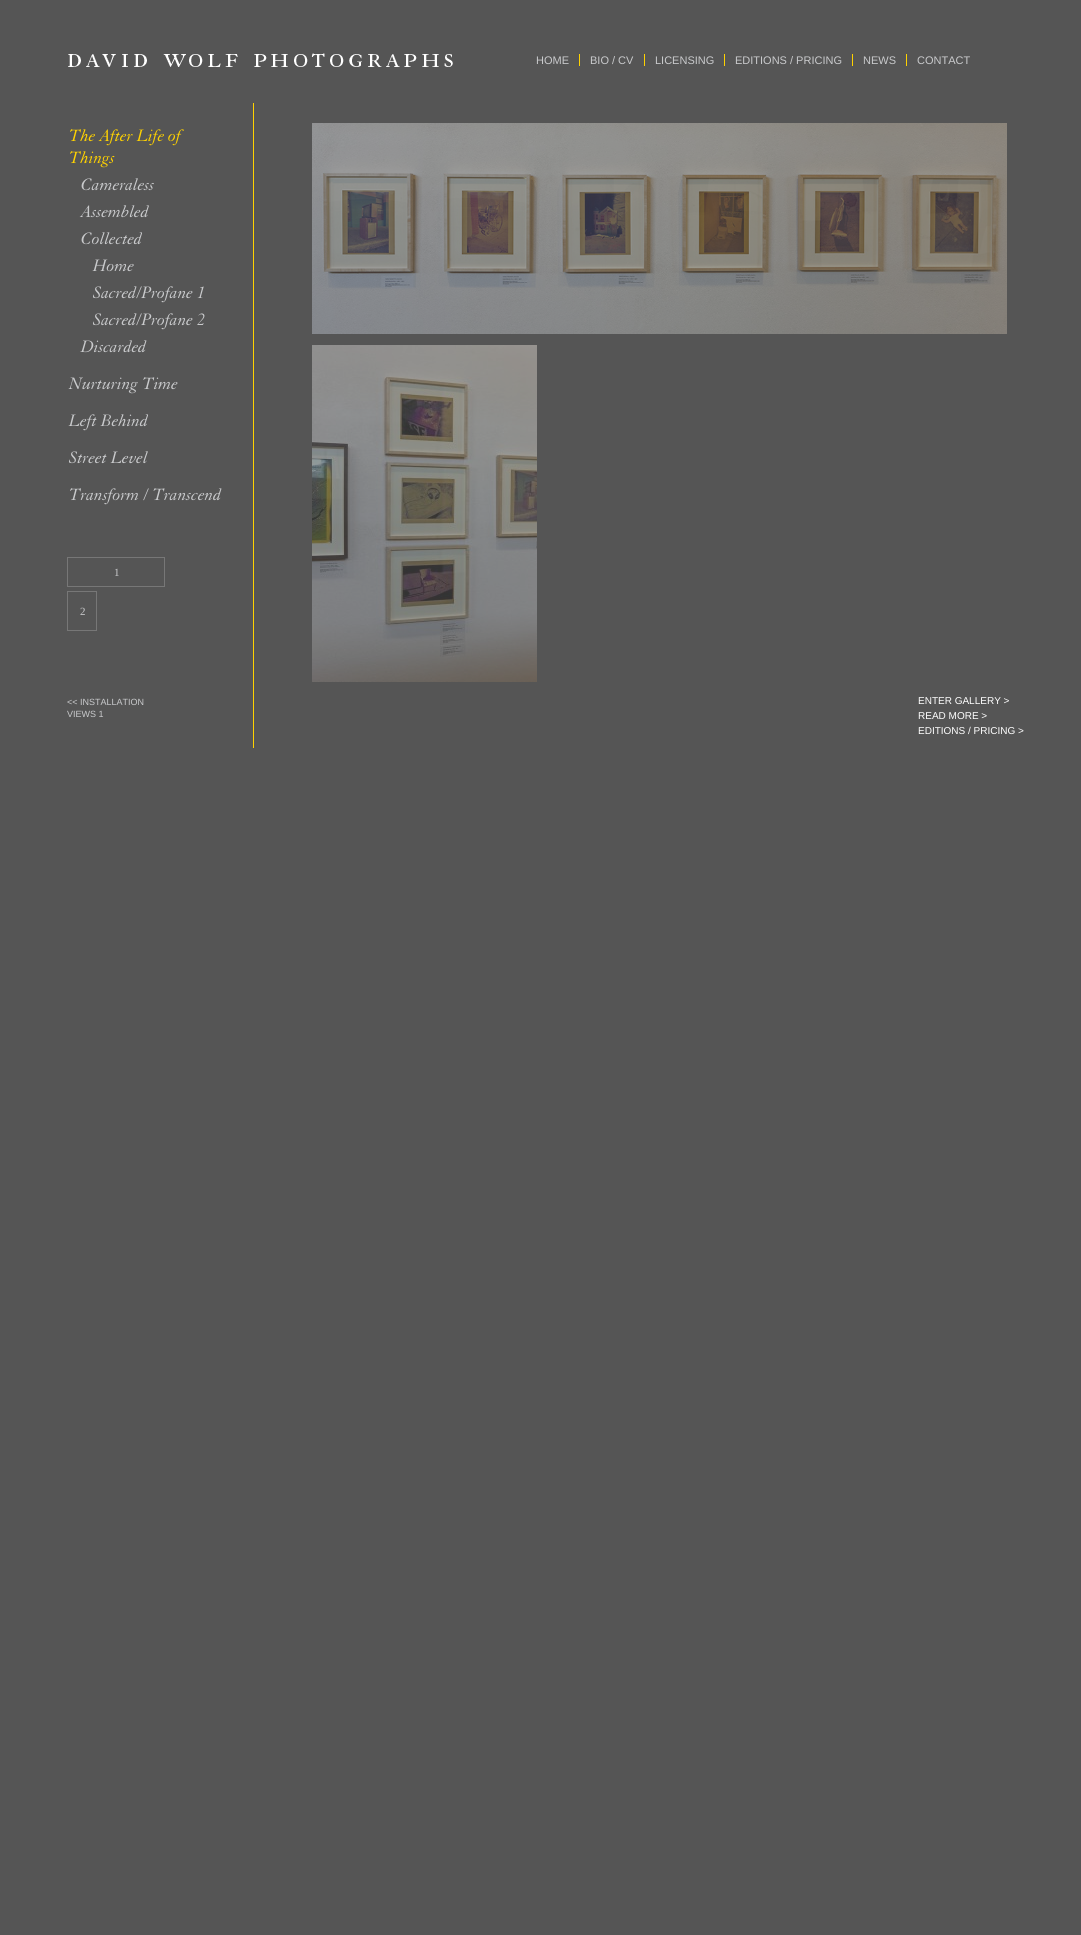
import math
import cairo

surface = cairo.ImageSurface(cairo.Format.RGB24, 1081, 1935)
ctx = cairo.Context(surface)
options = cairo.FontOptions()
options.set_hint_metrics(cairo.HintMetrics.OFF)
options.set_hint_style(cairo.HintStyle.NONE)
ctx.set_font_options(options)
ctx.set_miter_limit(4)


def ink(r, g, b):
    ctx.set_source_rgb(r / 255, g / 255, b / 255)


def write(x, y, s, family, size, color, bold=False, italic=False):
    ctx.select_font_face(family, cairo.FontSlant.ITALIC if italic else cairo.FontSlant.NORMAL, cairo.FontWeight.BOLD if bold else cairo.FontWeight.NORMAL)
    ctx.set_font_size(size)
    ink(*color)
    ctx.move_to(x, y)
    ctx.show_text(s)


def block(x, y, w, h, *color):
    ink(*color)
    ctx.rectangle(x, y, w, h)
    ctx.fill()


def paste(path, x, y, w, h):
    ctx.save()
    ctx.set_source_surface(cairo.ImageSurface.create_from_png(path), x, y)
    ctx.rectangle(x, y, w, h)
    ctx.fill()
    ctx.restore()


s1 = dict(family="Liberation Sans", size=11, color=(201, 202, 204))
s2 = dict(family="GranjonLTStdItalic", size=18, color=(255, 210, 0), italic=True)
s3 = dict(family="GranjonLTStdItalic", size=18, color=(201, 202, 204), italic=True)
s4 = dict(family="Liberation Serif", size=11, color=(201, 202, 204))
s5 = dict(family="Liberation Sans", size=9, color=(201, 202, 204))
s6 = dict(family="Liberation Sans", size=10, color=(255, 255, 255))

ink(85, 85, 85)
ctx.paint()
paste("pic1.png", 68, 53, 385, 14)
write(536, 64, "HOME", **s1)
write(590, 64, "BIO / CV", **s1)
block(579, 54, 1, 12, 255, 210, 0)
write(655, 64, "LICENSING", **s1)
block(644, 54, 1, 12, 255, 210, 0)
write(735, 64, "EDITIONS / PRICING", **s1)
block(724, 54, 1, 12, 255, 210, 0)
write(863, 64, "NEWS", **s1)
block(852, 54, 1, 12, 255, 210, 0)
write(917, 64, "CONTACT", **s1)
block(906, 54, 1, 12, 255, 210, 0)
write(69, 141, "The After Life of", **s2)
write(69, 163, "Things", **s2)
write(81, 190, "Cameraless", **s3)
write(81, 217, "Assembled", **s3)
write(81, 244, "Collected", **s3)
write(93, 271, "Home", **s3)
write(93, 298, "Sacred/Profane 1", **s3)
write(93, 325, "Sacred/Profane 2", **s3)
write(81, 352, "Discarded", **s3)
write(69, 389, "Nurturing Time", **s3)
write(69, 426, "Left Behind", **s3)
write(69, 463, "Street Level", **s3)
write(69, 500, "Transform / Transcend", **s3)
ctx.rectangle(67.5, 557.5, 97, 29)
ink(119, 119, 119)
ctx.set_line_width(1)
ctx.stroke()
write(114, 576, "1", **s4)
ctx.rectangle(67.5, 591.5, 29, 39)
ink(119, 119, 119)
ctx.stroke()
write(80, 615, "2", **s4)
write(67, 705, "<< INSTALLATION", **s5)
write(67, 717, "VIEWS 1", **s5)
block(253, 103, 1, 645, 255, 210, 0)
paste("pic2.png", 312, 123, 695, 211)
paste("pic3.png", 312, 345, 225, 337)
write(918, 704, "ENTER GALLERY >", **s6)
write(918, 719, "READ MORE >", **s6)
write(918, 734, "EDITIONS / PRICING >", **s6)
surface.write_to_png("screenshot.png")
